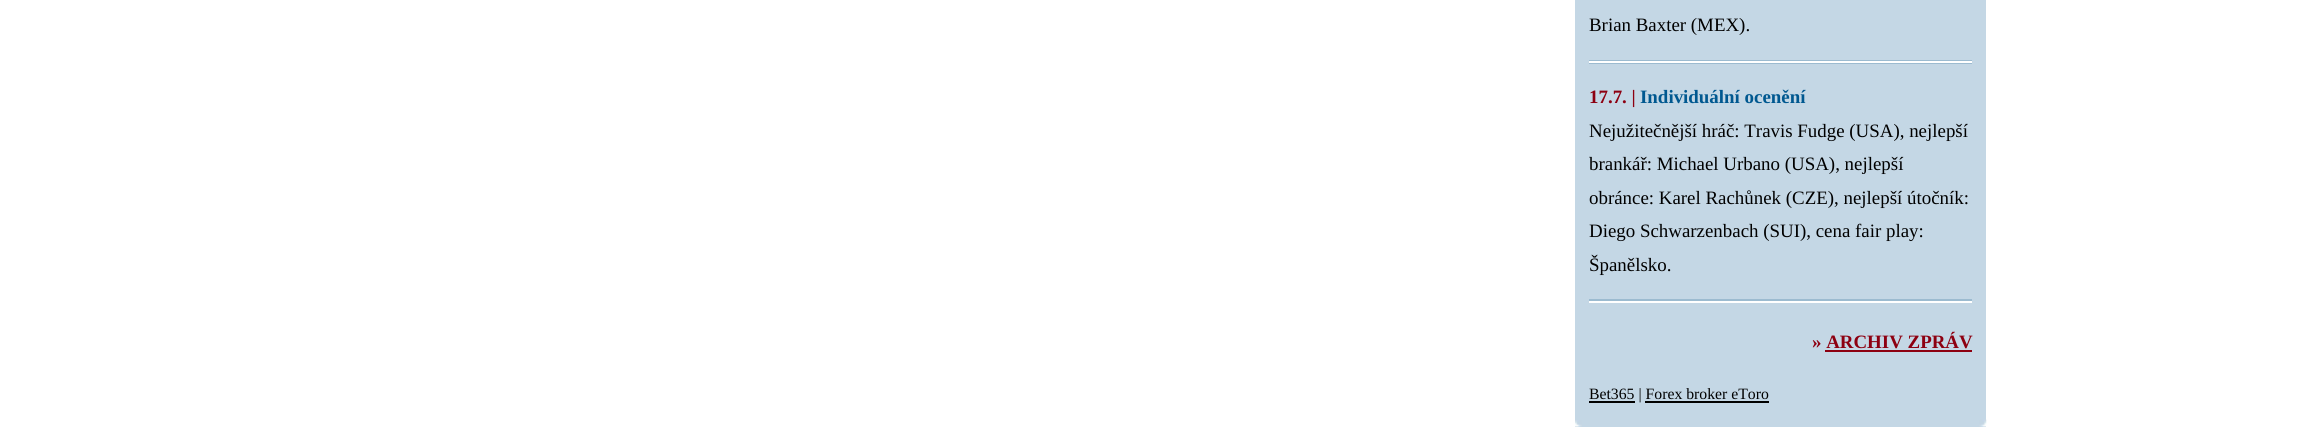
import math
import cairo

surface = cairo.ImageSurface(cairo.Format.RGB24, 2310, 445)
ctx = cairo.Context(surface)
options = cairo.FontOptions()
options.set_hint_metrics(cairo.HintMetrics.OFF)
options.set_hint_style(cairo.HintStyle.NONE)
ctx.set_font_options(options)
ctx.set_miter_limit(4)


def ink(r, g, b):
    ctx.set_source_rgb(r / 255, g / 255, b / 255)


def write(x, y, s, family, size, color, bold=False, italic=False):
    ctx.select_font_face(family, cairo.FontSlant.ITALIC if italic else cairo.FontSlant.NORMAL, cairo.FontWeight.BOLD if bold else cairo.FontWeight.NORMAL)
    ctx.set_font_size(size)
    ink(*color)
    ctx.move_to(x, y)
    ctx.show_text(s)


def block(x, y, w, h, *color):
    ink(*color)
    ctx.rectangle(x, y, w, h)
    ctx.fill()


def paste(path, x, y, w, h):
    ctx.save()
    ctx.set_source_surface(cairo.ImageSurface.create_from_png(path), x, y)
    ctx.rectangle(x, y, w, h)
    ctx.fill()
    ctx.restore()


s1 = dict(family="Liberation Serif", size=18.9, color=(0, 0, 0))
s2 = dict(family="Liberation Serif", size=18.9, color=(141, 0, 17), bold=True)
s3 = dict(family="Liberation Serif", size=18.9, color=(0, 88, 144), bold=True)
s4 = dict(family="Liberation Serif", size=15.75, color=(0, 0, 0))

ink(255, 255, 255)
ctx.paint()
block(1575, 0, 411, 427, 196, 215, 229)
write(1589, 31, "Brian Baxter (MEX).", **s1)
block(1589, 60, 383, 4, 156, 187, 208)
block(1589, 61, 383, 2, 255, 255, 255)
write(1589, 103, "17.7. |", **s2)
write(1640, 103, "Individuální ocenění", **s3)
write(1589, 137, "Nejužitečnější hráč: Travis Fudge (USA), nejlepší", **s1)
write(1589, 170, "brankář: Michael Urbano (USA), nejlepší", **s1)
write(1589, 204, "obránce: Karel Rachůnek (CZE), nejlepší útočník:", **s1)
write(1589, 237, "Diego Schwarzenbach (SUI), cena fair play:", **s1)
write(1589, 271, "Španělsko.", **s1)
block(1589, 299, 383, 2, 156, 187, 208)
block(1589, 301, 383, 2, 255, 255, 255)
write(1812, 348, "» ARCHIV ZPRÁV", **s2)
block(1825, 350, 147, 2, 141, 0, 17)
block(1589, 401, 46, 2, 0, 0, 0)
write(1589, 399, "Bet365 | Forex broker eToro", **s4)
block(1645, 401, 124, 2, 0, 0, 0)
paste("pic1.png", 1575, 420, 7, 7)
paste("pic2.png", 1979, 419, 8, 8)
surface.write_to_png("screenshot.png")
